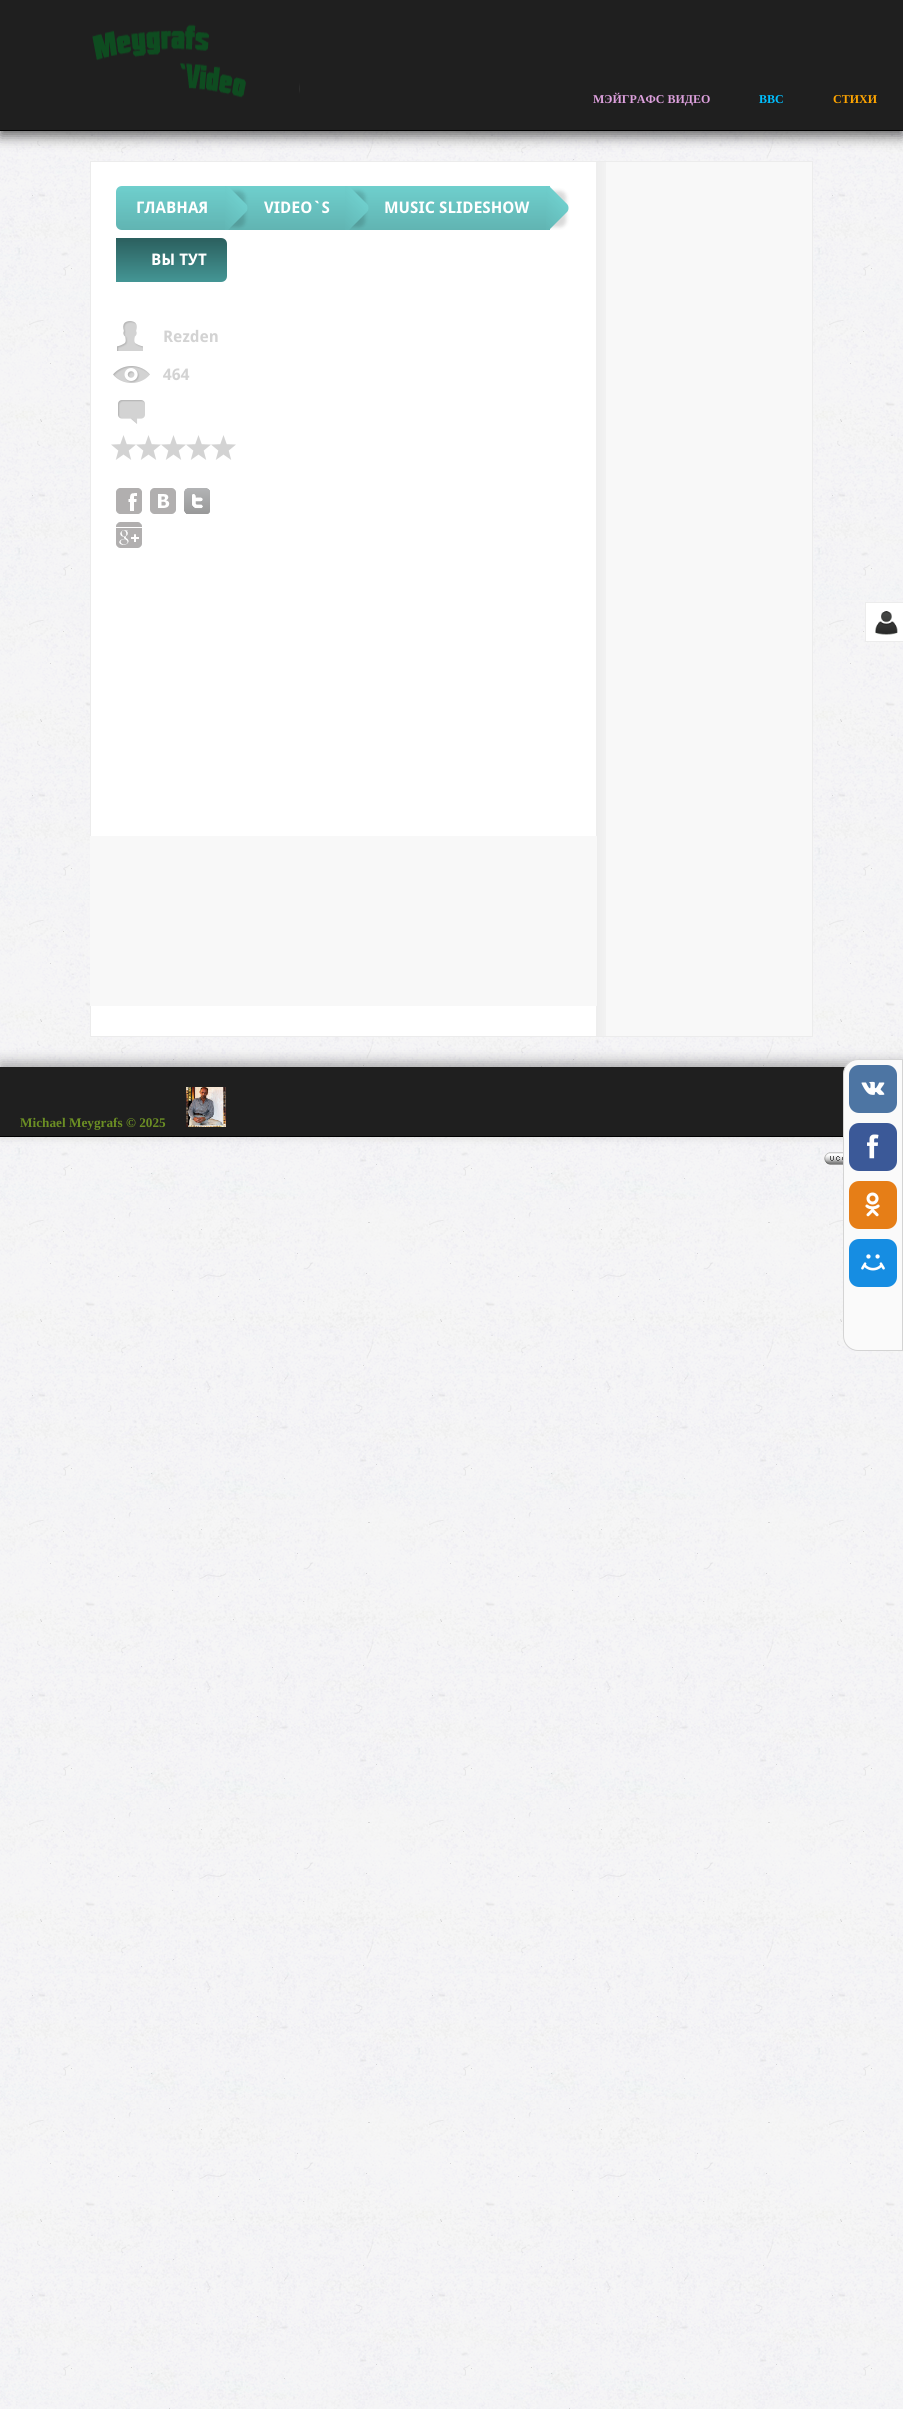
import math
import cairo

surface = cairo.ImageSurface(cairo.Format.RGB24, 903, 2409)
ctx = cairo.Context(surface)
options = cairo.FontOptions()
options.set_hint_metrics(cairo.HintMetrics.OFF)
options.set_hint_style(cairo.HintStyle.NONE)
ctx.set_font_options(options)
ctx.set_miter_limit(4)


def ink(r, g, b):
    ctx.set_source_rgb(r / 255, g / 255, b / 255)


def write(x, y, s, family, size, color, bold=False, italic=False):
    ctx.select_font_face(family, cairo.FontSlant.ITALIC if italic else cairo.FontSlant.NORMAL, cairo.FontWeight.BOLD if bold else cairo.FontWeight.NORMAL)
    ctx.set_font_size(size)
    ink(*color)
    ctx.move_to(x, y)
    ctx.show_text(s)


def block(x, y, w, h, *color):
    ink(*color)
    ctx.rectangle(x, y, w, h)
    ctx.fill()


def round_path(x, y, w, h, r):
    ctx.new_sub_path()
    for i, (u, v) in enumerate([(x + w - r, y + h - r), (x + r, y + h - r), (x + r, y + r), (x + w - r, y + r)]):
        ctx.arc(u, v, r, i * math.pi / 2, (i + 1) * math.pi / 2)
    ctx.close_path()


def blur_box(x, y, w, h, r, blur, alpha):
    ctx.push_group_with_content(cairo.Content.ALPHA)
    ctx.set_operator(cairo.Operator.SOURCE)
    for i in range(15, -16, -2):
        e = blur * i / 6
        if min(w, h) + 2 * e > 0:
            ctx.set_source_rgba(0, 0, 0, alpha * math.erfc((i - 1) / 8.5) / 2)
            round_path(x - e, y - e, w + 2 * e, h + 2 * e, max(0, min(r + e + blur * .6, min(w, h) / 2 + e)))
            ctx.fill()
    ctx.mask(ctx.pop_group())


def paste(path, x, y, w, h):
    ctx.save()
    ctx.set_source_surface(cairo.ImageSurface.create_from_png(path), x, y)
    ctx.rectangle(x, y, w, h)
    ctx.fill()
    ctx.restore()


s1 = dict(family="Liberation Serif", size=12, color=(221, 160, 221), bold=True)
s2 = dict(family="Liberation Serif", size=12, color=(0, 191, 255), bold=True)
s3 = dict(family="Liberation Serif", size=12, color=(255, 165, 0), bold=True)
s4 = dict(family="Droid Sans", size=16, color=(255, 255, 255), bold=True)
s5 = dict(family="Droid Sans", size=16, color=(211, 211, 211), bold=True)
s6 = dict(family="Liberation Serif", size=13.25, color=(107, 142, 35), bold=True)

ink(255, 255, 255)
ctx.paint()
paste("pic1.png", 0, 131, 903, 2278)
ink(0, 0, 0)
blur_box(0, 5, 903, 131, 0, 6.5, 0.6)
block(0, 0, 903, 130, 31, 31, 31)
block(0, 130, 903, 1, 0, 0, 0)
paste("pic2.png", 92, 24, 208, 74)
write(593, 103, "МЭЙГРАФС ВИДЕО", **s1)
write(759, 103, "BBC", **s2)
write(833, 103, "СТИХИ", **s3)
block(91, 162, 505, 874, 255, 255, 255)
ctx.rectangle(90.5, 161.5, 722, 875)
ink(236, 236, 236)
ctx.set_line_width(1)
ctx.stroke()
ink(111, 207, 205)
ctx.new_path()
ctx.move_to(122, 186)
ctx.line_to(229, 186)
ctx.line_to(229, 230)
ctx.line_to(122, 230)
ctx.curve_to(118.5, 230, 116, 227.5, 116, 224)
ctx.line_to(116, 192)
ctx.curve_to(116, 188.5, 118.5, 186, 122, 186)
ctx.close_path()
ctx.fill()
gradient = cairo.LinearGradient(173, 230, 173, 186)
gradient.add_color_stop_rgba(0, 0, 0, 0, 0.13)
gradient.add_color_stop_rgba(1, 0, 0, 0, 0)
ctx.set_source(gradient)
ctx.new_path()
ctx.move_to(122, 186)
ctx.line_to(229, 186)
ctx.line_to(229, 230)
ctx.line_to(122, 230)
ctx.curve_to(118.5, 230, 116, 227.5, 116, 224)
ctx.line_to(116, 192)
ctx.curve_to(116, 188.5, 118.5, 186, 122, 186)
ctx.close_path()
ctx.fill()
write(136, 213, "ГЛАВНАЯ", **s4)
gradient = cairo.LinearGradient(289, 230, 289, 186)
gradient.add_color_stop_rgba(0, 0.38, 0.706, 0.698, 1)
gradient.add_color_stop_rgba(1, 0.435, 0.812, 0.804, 1)
ctx.set_source(gradient)
ctx.rectangle(229, 186, 116, 44)
ctx.fill()
ctx.save()
ctx.rectangle(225, 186, 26, 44)
ctx.clip()
ink(0, 0, 0)
blur_box(209, 191, 36, 36, 6, 2, 0.15)
ctx.restore()
ctx.save()
ctx.rectangle(225, 186, 26, 44)
ctx.clip()
ink(111, 207, 205)
ctx.new_path()
ctx.move_to(229, 187)
ctx.line_to(246, 204)
ctx.curve_to(248, 206, 248, 210, 246, 212)
ctx.line_to(229, 229)
ctx.curve_to(226, 232, 223, 232, 220, 229)
ctx.line_to(203, 212)
ctx.curve_to(201, 210, 201, 206, 203, 204)
ctx.line_to(220, 187)
ctx.curve_to(223, 184, 226, 184, 229, 187)
ctx.close_path()
ctx.fill()
gradient = cairo.LinearGradient(212, 221, 237, 195)
gradient.add_color_stop_rgba(0, 0, 0, 0, 0.13)
gradient.add_color_stop_rgba(1, 0, 0, 0, 0)
ctx.set_source(gradient)
ctx.new_path()
ctx.move_to(229, 187)
ctx.line_to(246, 204)
ctx.curve_to(248, 206, 248, 210, 246, 212)
ctx.line_to(229, 229)
ctx.curve_to(226, 232, 223, 232, 220, 229)
ctx.line_to(203, 212)
ctx.curve_to(201, 210, 201, 206, 203, 204)
ctx.line_to(220, 187)
ctx.curve_to(223, 184, 226, 184, 229, 187)
ctx.close_path()
ctx.fill()
ctx.restore()
write(264, 213, "VIDEO`S", **s4)
gradient = cairo.LinearGradient(450, 230, 450, 186)
gradient.add_color_stop_rgba(0, 0.38, 0.706, 0.698, 1)
gradient.add_color_stop_rgba(1, 0.435, 0.812, 0.804, 1)
ctx.set_source(gradient)
ctx.rectangle(349, 186, 201, 44)
ctx.fill()
ctx.save()
ctx.rectangle(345, 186, 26, 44)
ctx.clip()
ink(0, 0, 0)
blur_box(329, 191, 36, 36, 6, 2, 0.15)
ctx.restore()
ctx.save()
ctx.rectangle(345, 186, 26, 44)
ctx.clip()
ink(111, 207, 205)
ctx.new_path()
ctx.move_to(350, 187)
ctx.line_to(367, 204)
ctx.curve_to(369, 206, 369, 210, 367, 212)
ctx.line_to(350, 229)
ctx.curve_to(347, 232, 344, 232, 341, 229)
ctx.line_to(324, 212)
ctx.curve_to(322, 210, 322, 206, 324, 204)
ctx.line_to(341, 187)
ctx.curve_to(344, 184, 347, 184, 350, 187)
ctx.close_path()
ctx.fill()
gradient = cairo.LinearGradient(333, 221, 358, 195)
gradient.add_color_stop_rgba(0, 0, 0, 0, 0.13)
gradient.add_color_stop_rgba(1, 0, 0, 0, 0)
ctx.set_source(gradient)
ctx.new_path()
ctx.move_to(350, 187)
ctx.line_to(367, 204)
ctx.curve_to(369, 206, 369, 210, 367, 212)
ctx.line_to(350, 229)
ctx.curve_to(347, 232, 344, 232, 341, 229)
ctx.line_to(324, 212)
ctx.curve_to(322, 210, 322, 206, 324, 204)
ctx.line_to(341, 187)
ctx.curve_to(344, 184, 347, 184, 350, 187)
ctx.close_path()
ctx.fill()
ctx.restore()
write(384, 213, "MUSIC SLIDESHOW", **s4)
ctx.save()
ctx.rectangle(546, 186, 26, 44)
ctx.clip()
ink(0, 0, 0)
blur_box(530, 191, 36, 36, 6, 2, 0.15)
ctx.restore()
ctx.save()
ctx.rectangle(546, 186, 26, 44)
ctx.clip()
ink(111, 207, 205)
ctx.new_path()
ctx.move_to(550, 187)
ctx.line_to(567, 204)
ctx.curve_to(569, 206, 569, 210, 567, 212)
ctx.line_to(550, 229)
ctx.curve_to(548, 232, 544, 232, 541, 229)
ctx.line_to(525, 212)
ctx.curve_to(522, 210, 522, 206, 525, 204)
ctx.line_to(541, 187)
ctx.curve_to(544, 184, 548, 184, 550, 187)
ctx.close_path()
ctx.fill()
gradient = cairo.LinearGradient(533, 221, 558, 195)
gradient.add_color_stop_rgba(0, 0, 0, 0, 0.13)
gradient.add_color_stop_rgba(1, 0, 0, 0, 0)
ctx.set_source(gradient)
ctx.new_path()
ctx.move_to(550, 187)
ctx.line_to(567, 204)
ctx.curve_to(569, 206, 569, 210, 567, 212)
ctx.line_to(550, 229)
ctx.curve_to(548, 232, 544, 232, 541, 229)
ctx.line_to(525, 212)
ctx.curve_to(522, 210, 522, 206, 525, 204)
ctx.line_to(541, 187)
ctx.curve_to(544, 184, 548, 184, 550, 187)
ctx.close_path()
ctx.fill()
ctx.restore()
gradient = cairo.LinearGradient(172, 238, 172, 282)
gradient.add_color_stop_rgba(0, 0.169, 0.373, 0.369, 1)
gradient.add_color_stop_rgba(1, 0.267, 0.588, 0.584, 1)
ctx.set_source(gradient)
ctx.new_path()
ctx.move_to(116, 238)
ctx.line_to(221, 238)
ctx.curve_to(224.5, 238, 227, 240.5, 227, 244)
ctx.line_to(227, 276)
ctx.curve_to(227, 279.5, 224.5, 282, 221, 282)
ctx.line_to(116, 282)
ctx.close_path()
ctx.fill()
write(151, 265, "ВЫ ТУТ", **s4)
paste("pic3.png", 117, 321, 26, 30)
write(163, 342, "Rezden", **s5)
paste("pic4.png", 113, 366, 37, 17)
write(163, 380, "464", **s5)
paste("pic5.png", 118, 400, 27, 24)
paste("pic6.png", 111, 435, 125, 25)
paste("pic7.png", 116, 488, 26, 26)
paste("pic8.png", 150, 488, 26, 26)
paste("pic9.png", 184, 488, 26, 26)
paste("pic10.png", 116, 522, 26, 26)
block(596, 162, 216, 874, 248, 248, 248)
paste("pic11.png", 596, 162, 10, 874)
block(90, 836, 507, 170, 248, 248, 248)
block(866, 603, 37, 38, 255, 255, 255)
paste("pic12.png", 875, 611, 23, 24)
block(865, 602, 38, 1, 236, 236, 236)
block(865, 641, 38, 1, 236, 236, 236)
block(865, 602, 1, 40, 236, 236, 236)
paste("pic18.png", 824, 1152, 19, 13)
ink(0, 0, 0)
blur_box(0, 1062, 903, 70, 0, 6.5, 0.3)
block(0, 1067, 845, 69, 31, 31, 31)
block(0, 1136, 843, 1, 0, 0, 0)
write(20, 1127, "Michael Meygrafs © 2025", **s6)
paste("pic13.png", 186, 1087, 40, 40)
ink(250, 250, 250)
ctx.new_path()
ctx.move_to(858, 1059.5)
ctx.line_to(902.5, 1059.5)
ctx.line_to(902.5, 1350.5)
ctx.line_to(858, 1350.5)
ctx.curve_to(850, 1350.5, 843.5, 1344, 843.5, 1336)
ctx.line_to(843.5, 1074)
ctx.curve_to(843.5, 1066, 850, 1059.5, 858, 1059.5)
ctx.close_path()
ctx.fill_preserve()
ink(212, 212, 212)
ctx.stroke()
ink(77, 117, 163)
round_path(849, 1065, 48, 48, 10)
ctx.fill()
paste("pic14.png", 861, 1081, 24, 14)
ink(59, 89, 152)
round_path(849, 1123, 48, 48, 10)
ctx.fill()
paste("pic15.png", 867, 1134, 12, 25)
ink(230, 126, 23)
round_path(849, 1181, 48, 48, 10)
ctx.fill()
paste("pic16.png", 865, 1192, 15, 25)
ink(22, 141, 226)
round_path(849, 1239, 48, 48, 10)
ctx.fill()
paste("pic17.png", 861, 1254, 24, 17)
surface.write_to_png("screenshot.png")
